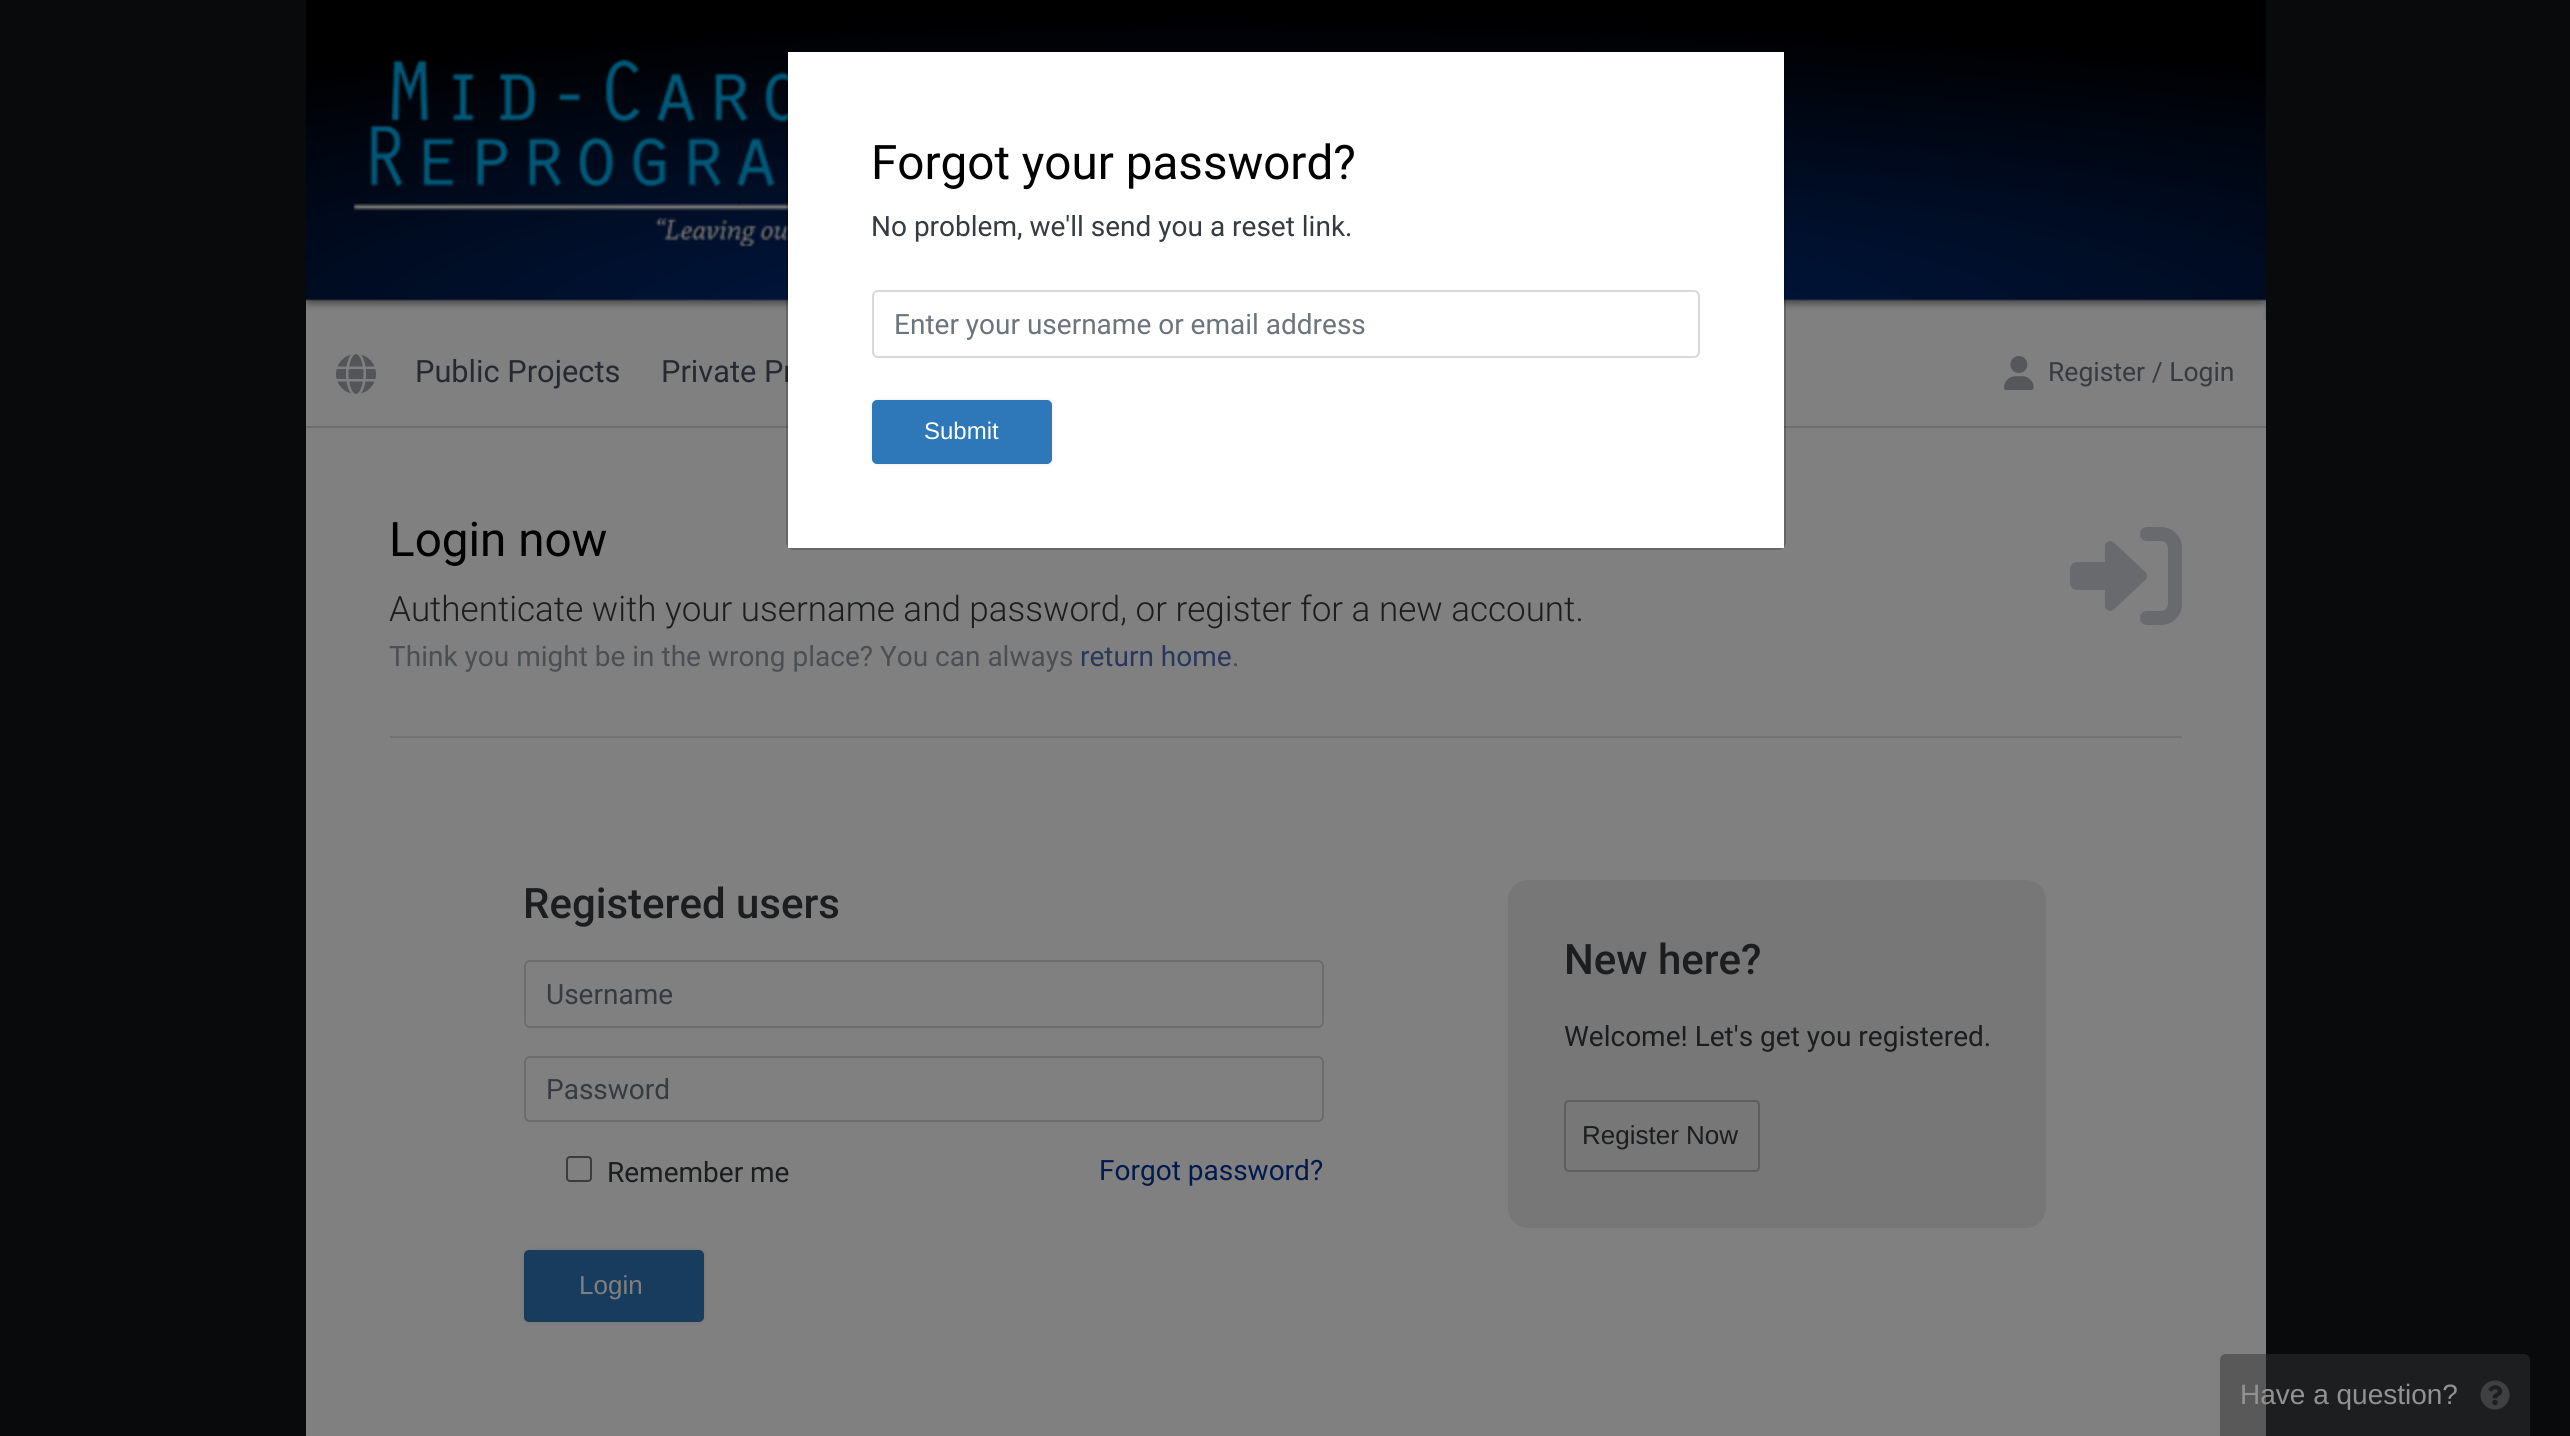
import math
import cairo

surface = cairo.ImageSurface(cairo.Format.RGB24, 2570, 1436)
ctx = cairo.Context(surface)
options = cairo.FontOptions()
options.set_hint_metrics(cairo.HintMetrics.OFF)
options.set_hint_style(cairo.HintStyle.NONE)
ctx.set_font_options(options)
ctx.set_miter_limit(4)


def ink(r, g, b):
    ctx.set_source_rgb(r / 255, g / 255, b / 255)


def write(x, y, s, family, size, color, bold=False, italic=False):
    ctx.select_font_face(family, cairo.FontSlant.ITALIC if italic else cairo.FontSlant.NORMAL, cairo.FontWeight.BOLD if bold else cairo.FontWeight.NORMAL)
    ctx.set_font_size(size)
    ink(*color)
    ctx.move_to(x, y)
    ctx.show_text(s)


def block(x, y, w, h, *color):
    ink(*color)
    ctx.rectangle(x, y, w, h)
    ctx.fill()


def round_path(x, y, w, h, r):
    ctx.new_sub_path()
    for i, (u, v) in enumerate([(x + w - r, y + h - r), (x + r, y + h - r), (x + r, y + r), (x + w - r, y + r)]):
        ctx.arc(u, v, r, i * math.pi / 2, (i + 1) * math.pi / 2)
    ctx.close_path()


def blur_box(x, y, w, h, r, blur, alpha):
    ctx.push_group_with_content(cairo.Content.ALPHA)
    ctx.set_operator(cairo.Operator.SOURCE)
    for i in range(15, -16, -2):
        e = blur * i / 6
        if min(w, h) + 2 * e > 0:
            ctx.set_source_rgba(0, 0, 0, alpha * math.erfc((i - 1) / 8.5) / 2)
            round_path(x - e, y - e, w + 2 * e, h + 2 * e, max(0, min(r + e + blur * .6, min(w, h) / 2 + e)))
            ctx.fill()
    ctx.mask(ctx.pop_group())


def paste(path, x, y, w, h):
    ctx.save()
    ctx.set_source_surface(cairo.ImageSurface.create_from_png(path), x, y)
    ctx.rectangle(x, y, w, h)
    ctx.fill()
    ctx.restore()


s1 = dict(family="Roboto", size=30.75, color=(38, 42, 48))
s2 = dict(family="Roboto", size=47.6, color=(0, 0, 0))
s3 = dict(family="Roboto", size=28, color=(54, 59, 63))
s4 = dict(family="Roboto", size=28, color=(108, 117, 125))
s5 = dict(family="Liberation Sans", size=24, color=(255, 255, 255))
s6 = dict(family="Roboto Light", size=35, color=(28, 29, 30))
s7 = dict(family="Roboto", size=28, color=(76, 79, 82))
s8 = dict(family="Roboto", size=28, color=(39, 56, 92))
s9 = dict(family="Roboto Medium", size=42, color=(28, 29, 30))
s10 = dict(family="Roboto", size=28, color=(28, 29, 30))
s11 = dict(family="Roboto", size=28, color=(0, 26, 77))
s12 = dict(family="Liberation Sans", size=26, color=(128, 128, 128))
s13 = dict(family="Liberation Sans", size=26, color=(28, 29, 30))
s14 = dict(family="Roboto", size=26.5, color=(54, 59, 63))
s15 = dict(family="Liberation Sans", size=28, color=(146, 146, 147))

ink(8, 10, 12)
ctx.paint()
paste("pic1.png", 306, 0, 1960, 320)
block(306, 428, 1960, 1008, 128, 128, 128)
block(306, 320, 1960, 106, 128, 128, 128)
block(306, 426, 1960, 2, 111, 111, 111)
write(661, 382, "Private Pr", **s1)
round_path(787, 51, 998, 498, 7)
ctx.set_source_rgba(0, 0, 0, 0.2)
ctx.stroke()
block(788, 52, 996, 496, 255, 255, 255)
write(871, 179, "Forgot your password?", **s2)
write(871, 236, "No problem, we'll send you a reset link.", **s3)
round_path(873, 291, 826, 66, 5)
ink(217, 217, 217)
ctx.stroke()
write(894, 334, "Enter your username or email address", **s4)
ink(0, 0, 0)
blur_box(872, 400, 180, 64, 5, 2, 0.1)
ink(46, 120, 186)
round_path(873, 401, 178, 62, 4)
ctx.fill_preserve()
ctx.stroke()
write(924, 439, "Submit", **s5)
block(390, 736, 1792, 2, 115, 115, 115)
write(389, 556, "Login now", **s2)
paste("pic2.png", 2070, 527, 112, 98)
write(389, 621, "Authenticate with your username and password, or register for a new account.", **s6)
write(389, 666, "Think you might be in the wrong place? You can always", **s7)
write(1080, 666, "return home", **s8)
write(1232, 666, ".", **s7)
write(523, 918, "Registered users", **s9)
round_path(525, 961, 798, 66, 5)
ink(109, 109, 109)
ctx.stroke()
write(546, 1004, "Username", **s3)
round_path(525, 1057, 798, 64, 5)
ink(109, 109, 109)
ctx.stroke()
write(546, 1099, "Password", **s3)
round_path(567, 1157, 24, 24, 3)
ink(59, 59, 59)
ctx.stroke()
write(607, 1182, "Remember me", **s10)
write(1099, 1180, "Forgot password?", **s11)
ink(0, 0, 0)
blur_box(524, 1250, 180, 72, 5, 2, 0.1)
ink(23, 60, 93)
round_path(525, 1251, 178, 70, 4)
ctx.fill_preserve()
ctx.stroke()
write(579, 1294, "Login", **s12)
ink(119, 119, 119)
round_path(1508, 880, 538, 348, 20)
ctx.fill()
write(1564, 974, "New here?", **s9)
write(1564, 1046, "Welcome! Let's get you registered.", **s10)
round_path(1565, 1101, 194, 70, 4)
ink(94, 94, 94)
ctx.stroke()
write(1582, 1144, "Register Now", **s13)
paste("pic3.png", 336, 354, 40, 40)
write(415, 382, "Public Projects", **s1)
paste("pic4.png", 2004, 356, 30, 34)
write(2048, 381, "Register / Login", **s14)
ctx.set_source_rgba(0.2, 0.2, 0.2, 0.5)
ctx.new_path()
ctx.move_to(2226, 1354)
ctx.line_to(2524, 1354)
ctx.curve_to(2527.5, 1354, 2530, 1356.5, 2530, 1360)
ctx.line_to(2530, 1436)
ctx.line_to(2220, 1436)
ctx.line_to(2220, 1360)
ctx.curve_to(2220, 1356.5, 2222.5, 1354, 2226, 1354)
ctx.close_path()
ctx.fill()
write(2240, 1404, "Have a question?", **s15)
paste("pic5.png", 2480, 1380, 30, 30)
surface.write_to_png("screenshot.png")
